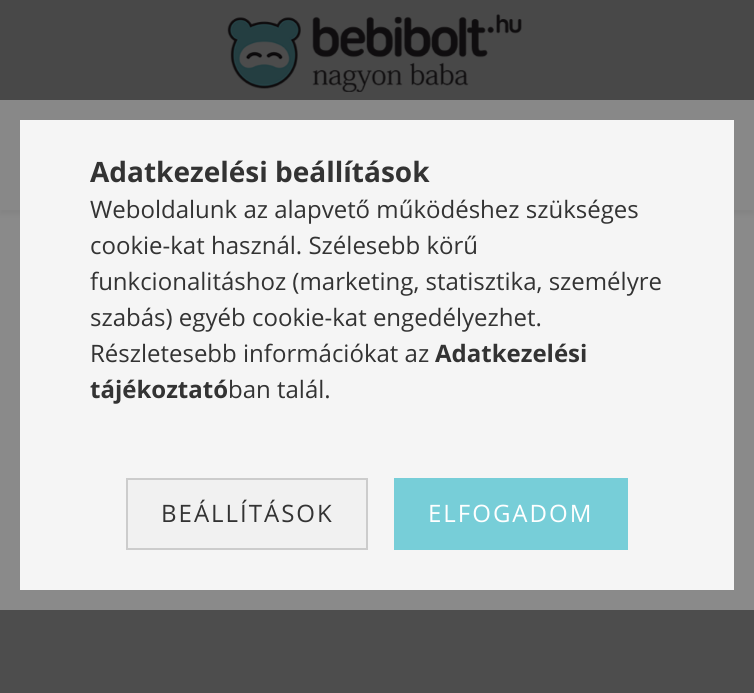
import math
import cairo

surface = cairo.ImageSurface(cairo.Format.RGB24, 754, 693)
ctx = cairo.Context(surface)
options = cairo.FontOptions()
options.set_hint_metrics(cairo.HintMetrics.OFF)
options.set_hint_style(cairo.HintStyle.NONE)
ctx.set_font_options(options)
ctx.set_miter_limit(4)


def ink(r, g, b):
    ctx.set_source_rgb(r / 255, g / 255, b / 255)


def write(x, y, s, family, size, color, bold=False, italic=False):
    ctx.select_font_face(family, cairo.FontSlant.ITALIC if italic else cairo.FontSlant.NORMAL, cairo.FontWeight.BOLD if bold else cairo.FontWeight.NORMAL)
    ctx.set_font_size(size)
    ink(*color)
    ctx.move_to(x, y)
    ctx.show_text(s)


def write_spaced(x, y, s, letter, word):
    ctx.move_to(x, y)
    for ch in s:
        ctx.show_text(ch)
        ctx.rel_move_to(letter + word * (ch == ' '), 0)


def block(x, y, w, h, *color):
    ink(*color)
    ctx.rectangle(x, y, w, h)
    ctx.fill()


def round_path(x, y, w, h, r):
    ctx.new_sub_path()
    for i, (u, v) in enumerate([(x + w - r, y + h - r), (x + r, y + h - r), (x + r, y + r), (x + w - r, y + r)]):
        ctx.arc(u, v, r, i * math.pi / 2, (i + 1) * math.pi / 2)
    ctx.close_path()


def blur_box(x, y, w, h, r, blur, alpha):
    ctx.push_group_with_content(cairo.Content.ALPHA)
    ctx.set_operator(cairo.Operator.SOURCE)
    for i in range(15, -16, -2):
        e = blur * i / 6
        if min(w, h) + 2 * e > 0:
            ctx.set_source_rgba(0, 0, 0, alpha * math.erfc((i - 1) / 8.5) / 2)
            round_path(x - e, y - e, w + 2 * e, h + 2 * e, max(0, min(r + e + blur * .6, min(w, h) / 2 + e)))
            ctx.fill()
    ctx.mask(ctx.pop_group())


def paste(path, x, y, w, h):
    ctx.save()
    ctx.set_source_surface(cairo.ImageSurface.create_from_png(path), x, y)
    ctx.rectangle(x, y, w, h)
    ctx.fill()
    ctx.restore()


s1 = dict(family="Open Sans", size=28, color=(51, 51, 51), bold=True)
s2 = dict(family="Open Sans", size=24, color=(51, 51, 51))
s3 = dict(family="Open Sans", size=24, color=(51, 51, 51), bold=True)

ink(77, 77, 77)
ctx.paint()
ink(0, 0, 0)
blur_box(0, 4, 754, 210, 0, 3, 0.2)
block(0, 0, 754, 210, 72, 72, 72)
paste("pic1.png", 227, 14, 295, 78)
ctx.rectangle(10, 110, 734, 490)
ctx.set_source_rgba(0.784, 0.784, 0.784, 0.5)
ctx.set_line_width(20)
ctx.stroke()
block(20, 120, 714, 470, 245, 245, 245)
write(90, 182, "Adatkezelési beállítások", **s1)
write(90, 218, "Weboldalunk az alapvető működéshez szükséges", **s2)
write(90, 254, "cookie-kat használ. Szélesebb körű", **s2)
write(90, 290, "funkcionalitáshoz (marketing, statisztika, személyre", **s2)
write(90, 326, "szabás) egyéb cookie-kat engedélyezhet.", **s2)
write(90, 362, "Részletesebb információkat az", **s2)
write(435, 362, "Adatkezelési", **s3)
write(90, 398, "tájékoztató", **s3)
write(228, 398, "ban talál.", **s2)
ink(241, 241, 241)
ctx.rectangle(127, 479, 240, 70)
ctx.fill_preserve()
ink(204, 204, 204)
ctx.set_line_width(2)
ctx.stroke()
ink(51, 51, 51)
write_spaced(161, 522, "BEÁLLÍTÁSOK", 2, 0)
block(394, 478, 234, 72, 119, 206, 216)
ink(255, 255, 255)
write_spaced(428, 522, "ELFOGADOM", 2, 0)
surface.write_to_png("screenshot.png")
